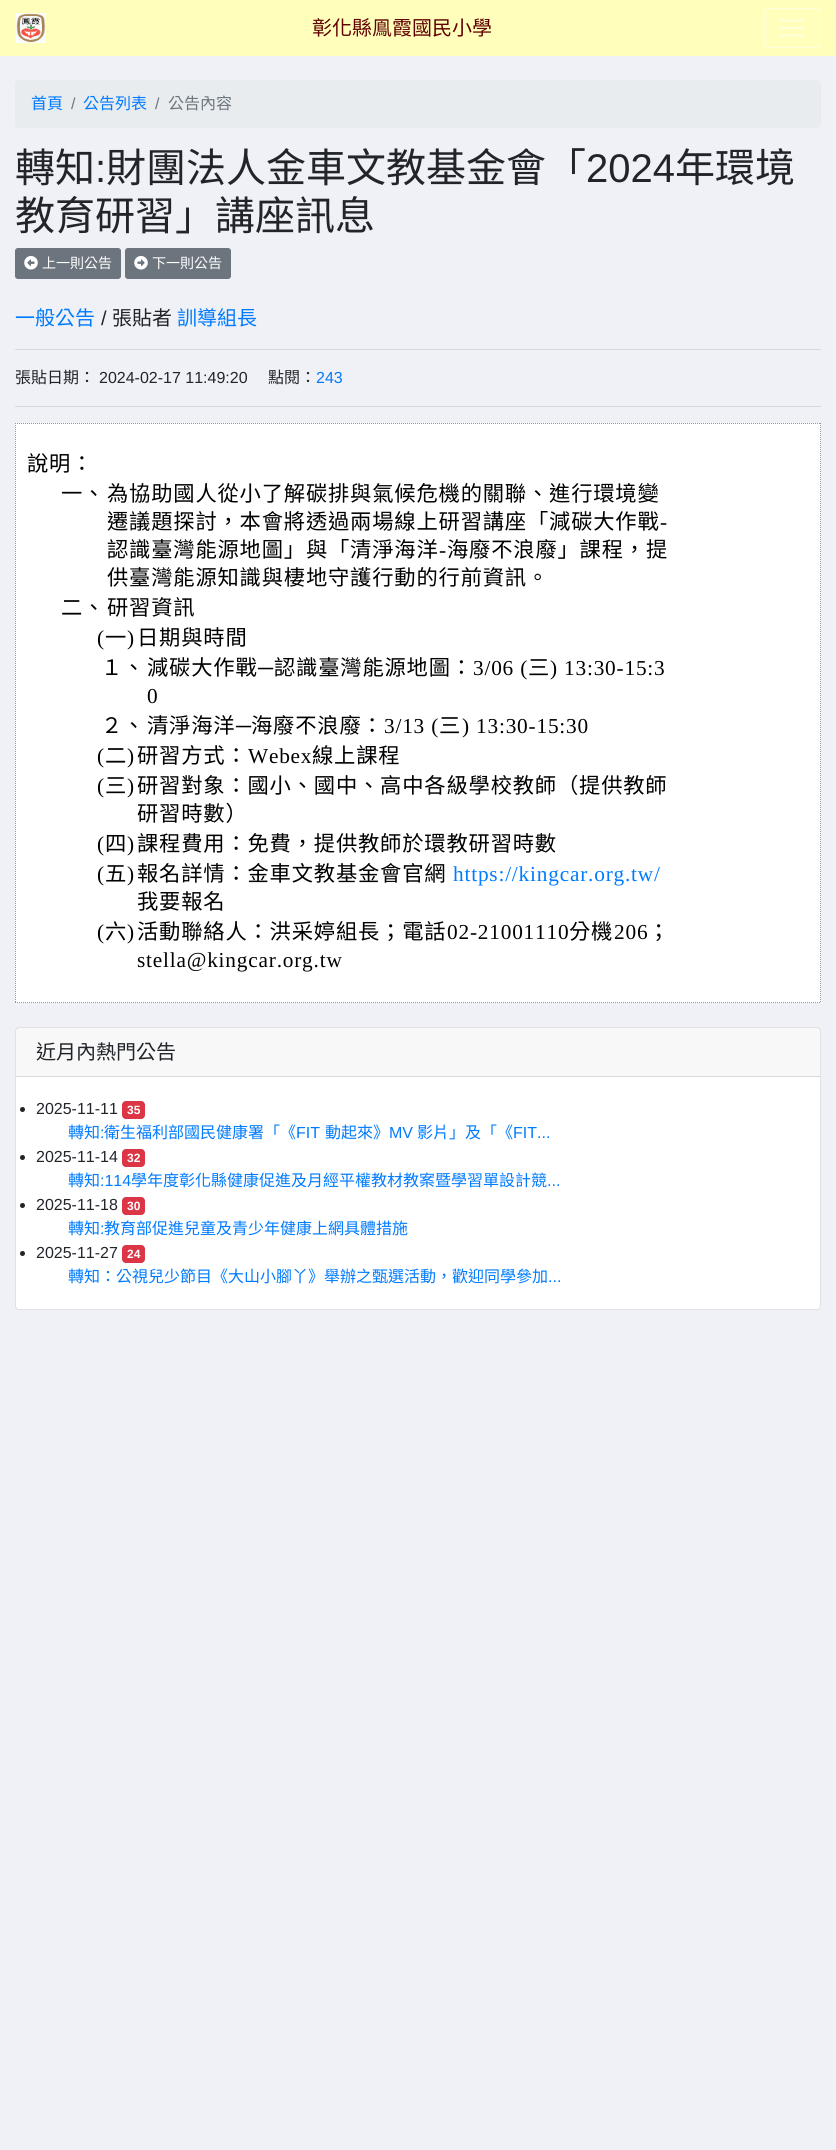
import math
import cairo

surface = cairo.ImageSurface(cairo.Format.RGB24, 836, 2150)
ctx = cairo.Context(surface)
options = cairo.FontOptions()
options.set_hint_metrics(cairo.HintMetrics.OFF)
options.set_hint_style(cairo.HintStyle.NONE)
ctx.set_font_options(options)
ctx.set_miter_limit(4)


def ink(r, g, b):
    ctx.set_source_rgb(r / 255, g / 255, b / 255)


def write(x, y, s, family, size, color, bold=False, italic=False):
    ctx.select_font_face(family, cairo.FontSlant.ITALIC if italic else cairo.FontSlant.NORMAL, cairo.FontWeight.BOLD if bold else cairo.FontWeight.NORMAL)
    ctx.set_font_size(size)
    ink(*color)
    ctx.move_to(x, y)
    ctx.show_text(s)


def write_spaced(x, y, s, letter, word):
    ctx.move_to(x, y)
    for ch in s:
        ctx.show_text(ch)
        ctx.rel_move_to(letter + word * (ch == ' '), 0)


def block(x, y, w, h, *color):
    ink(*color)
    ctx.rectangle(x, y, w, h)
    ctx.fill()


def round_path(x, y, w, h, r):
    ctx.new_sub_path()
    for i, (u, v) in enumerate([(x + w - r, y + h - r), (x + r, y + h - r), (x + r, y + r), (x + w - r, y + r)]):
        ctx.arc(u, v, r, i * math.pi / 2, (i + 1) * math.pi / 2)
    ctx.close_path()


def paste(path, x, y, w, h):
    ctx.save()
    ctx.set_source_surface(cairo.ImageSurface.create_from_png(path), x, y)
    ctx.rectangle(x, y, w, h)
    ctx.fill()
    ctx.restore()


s1 = dict(family="Noto Sans CJK TC", size=20, color=(96, 0, 0))
s2 = dict(family="Noto Sans CJK TC", size=16, color=(0, 123, 255))
s3 = dict(family="Liberation Sans", size=16, color=(108, 117, 125))
s4 = dict(family="Noto Sans CJK TC", size=16, color=(108, 117, 125))
s5 = dict(family="Noto Sans CJK TC", size=40, color=(33, 37, 41))
s6 = dict(family="Liberation Sans", size=40, color=(33, 37, 41))
s7 = dict(family="Noto Sans CJK TC", size=14, color=(255, 255, 255))
s8 = dict(family="Noto Sans CJK TC", size=20, color=(0, 123, 255))
s9 = dict(family="Liberation Sans", size=20, color=(33, 37, 41))
s10 = dict(family="Noto Sans CJK TC", size=20, color=(33, 37, 41))
s11 = dict(family="Noto Sans CJK TC", size=16, color=(33, 37, 41))
s12 = dict(family="Liberation Sans", size=16, color=(33, 37, 41))
s13 = dict(family="Liberation Sans", size=16, color=(0, 123, 255))
s14 = dict(family="Liberation Sans", size=12, color=(255, 255, 255), bold=True)

ink(240, 241, 246)
ctx.paint()
block(0, 0, 836, 56, 255, 255, 187)
paste("pic1.png", 16, 13, 30, 30)
write(312, 35, "彰化縣鳯霞國民小學", **s1)
round_path(764.5, 8.5, 55, 39, 3.5)
ink(255, 255, 221)
ctx.set_line_width(1)
ctx.stroke()
paste("pic2.png", 779, 19, 26, 18)
ink(233, 236, 239)
round_path(15, 80, 806, 48, 4)
ctx.fill()
write(31, 109, "首頁", **s2)
write(71, 109, "/", **s3)
write(83, 109, "公告列表", **s2)
write(155, 109, "/", **s3)
write(168, 109, "公告內容", **s4)
write(15, 182, "轉知", **s5)
write(95, 182, ":", **s6)
write(106, 182, "財團法人金車文教基金會「", **s5)
write(586, 182, "2024", **s6)
write(675, 182, "年環境", **s5)
write(15, 230, "教育研習」講座訊息", **s5)
ink(108, 117, 125)
round_path(15.5, 248.5, 105, 30, 2.5)
ctx.fill_preserve()
ctx.stroke()
paste("pic3.png", 24, 256, 14, 14)
write(42, 268, "上一則公告", **s7)
ink(108, 117, 125)
round_path(125.5, 248.5, 105, 30, 2.5)
ctx.fill_preserve()
ctx.stroke()
paste("pic4.png", 134, 256, 14, 14)
write(152, 268, "下一則公告", **s7)
write(15, 325, "一般公告", **s8)
write(101, 325, "/", **s9)
write(112, 325, "張貼者", **s10)
write(177, 325, "訓導組長", **s8)
block(15, 349, 806, 1, 216, 217, 221)
write(15, 383, "張貼日期：", **s11)
write(99, 383, "2024-02-17 11:49:20", **s12)
write(268, 383, "點閱：", **s11)
write(316, 383, "243", **s13)
block(15, 406, 806, 1, 216, 217, 221)
block(15, 423, 806, 580, 255, 255, 255)
ctx.new_path()
ctx.move_to(15, 423.5)
ctx.line_to(821, 423.5)
ink(147, 150, 153)
ctx.set_dash([1, 1])
ctx.stroke()
ctx.new_path()
ctx.move_to(820.5, 423)
ctx.line_to(820.5, 1003)
ctx.stroke()
ctx.new_path()
ctx.move_to(15, 1002.5)
ctx.line_to(821, 1002.5)
ctx.stroke()
ctx.new_path()
ctx.move_to(15.5, 423)
ctx.line_to(15.5, 1003)
ctx.stroke()
ctx.select_font_face("Noto Sans CJK TC")
ctx.set_font_size(21.3)
ink(0, 0, 0)
write_spaced(27, 471, "說明：", 0.8, 0)
write_spaced(61, 501, "一、", 0.8, 0)
write_spaced(107, 501, "為協助國人從小了解碳排與氣候危機的關聯、進行環境變", 0.8, 0)
write_spaced(107, 529, "遷議題探討，本會將透過兩場線上研習講座「減碳大作戰", 0.8, 0)
ctx.select_font_face("Liberation Serif")
write_spaced(660, 529, "-", 0.8, 0)
ctx.select_font_face("Noto Sans CJK TC")
write_spaced(107, 557, "認識臺灣能源地圖」與「清淨海洋", 0.8, 0)
ctx.select_font_face("Liberation Serif")
write_spaced(439, 557, "-", 0.8, 0)
ctx.select_font_face("Noto Sans CJK TC")
write_spaced(447, 557, "海廢不浪廢」課程，提", 0.8, 0)
write_spaced(107, 585, "供臺灣能源知識與棲地守護行動的行前資訊。", 0.8, 0)
write_spaced(61, 615, "二、", 0.8, 0)
write_spaced(107, 615, "研習資訊", 0.8, 0)
ctx.select_font_face("Liberation Serif")
write_spaced(97, 645, "(", 0.8, 0)
ctx.select_font_face("Noto Sans CJK TC")
write_spaced(105, 645, "一", 0.8, 0)
ctx.select_font_face("Liberation Serif")
write_spaced(127, 645, ")", 0.8, 0)
ctx.select_font_face("Noto Sans CJK TC")
write_spaced(137, 645, "日期與時間", 0.8, 0)
write_spaced(101, 675, "１、", 0.8, 0)
write_spaced(147, 675, "減碳大作戰", 0.8, 0)
ctx.select_font_face("Liberation Serif")
write_spaced(258, 675, "─", 0.8, 0)
ctx.select_font_face("Noto Sans CJK TC")
write_spaced(274, 675, "認識臺灣能源地圖：", 0.8, 0)
ctx.select_font_face("Liberation Serif")
write_spaced(473, 675, "3/06 (", 0.8, 0)
ctx.select_font_face("Noto Sans CJK TC")
write_spaced(528, 675, "三", 0.8, 0)
ctx.select_font_face("Liberation Serif")
write_spaced(550, 675, ") 13:30-15:3", 0.8, 0)
write_spaced(147, 703, "0", 0.8, 0)
ctx.select_font_face("Noto Sans CJK TC")
write_spaced(101, 733, "２、", 0.8, 0)
write_spaced(147, 733, "清淨海洋", 0.8, 0)
ctx.select_font_face("Liberation Serif")
write_spaced(236, 733, "─", 0.8, 0)
ctx.select_font_face("Noto Sans CJK TC")
write_spaced(251, 733, "海廢不浪廢：", 0.8, 0)
ctx.select_font_face("Liberation Serif")
write_spaced(384, 733, "3/13 (", 0.8, 0)
ctx.select_font_face("Noto Sans CJK TC")
write_spaced(439, 733, "三", 0.8, 0)
ctx.select_font_face("Liberation Serif")
write_spaced(462, 733, ") 13:30-15:30", 0.8, 0)
write_spaced(97, 763, "(", 0.8, 0)
ctx.select_font_face("Noto Sans CJK TC")
write_spaced(105, 763, "二", 0.8, 0)
ctx.select_font_face("Liberation Serif")
write_spaced(127, 763, ")", 0.8, 0)
ctx.select_font_face("Noto Sans CJK TC")
write_spaced(137, 763, "研習方式：", 0.8, 0)
ctx.select_font_face("Liberation Serif")
write_spaced(248, 763, "Webex", 0.8, 0)
ctx.select_font_face("Noto Sans CJK TC")
write_spaced(312, 763, "線上課程", 0.8, 0)
ctx.select_font_face("Liberation Serif")
write_spaced(97, 793, "(", 0.8, 0)
ctx.select_font_face("Noto Sans CJK TC")
write_spaced(105, 793, "三", 0.8, 0)
ctx.select_font_face("Liberation Serif")
write_spaced(127, 793, ")", 0.8, 0)
ctx.select_font_face("Noto Sans CJK TC")
write_spaced(137, 793, "研習對象：國小、國中、高中各級學校教師（提供教師", 0.8, 0)
write_spaced(137, 821, "研習時數）", 0.8, 0)
ctx.select_font_face("Liberation Serif")
write_spaced(97, 851, "(", 0.8, 0)
ctx.select_font_face("Noto Sans CJK TC")
write_spaced(105, 851, "四", 0.8, 0)
ctx.select_font_face("Liberation Serif")
write_spaced(127, 851, ")", 0.8, 0)
ctx.select_font_face("Noto Sans CJK TC")
write_spaced(137, 851, "課程費用：免費，提供教師於環教研習時數", 0.8, 0)
ctx.select_font_face("Liberation Serif")
write_spaced(97, 881, "(", 0.8, 0)
ctx.select_font_face("Noto Sans CJK TC")
write_spaced(105, 881, "五", 0.8, 0)
ctx.select_font_face("Liberation Serif")
write_spaced(127, 881, ")", 0.8, 0)
ctx.select_font_face("Noto Sans CJK TC")
write_spaced(137, 881, "報名詳情：金車文教基金會官網", 0.8, 0)
ctx.select_font_face("Liberation Serif")
ink(0, 123, 255)
write_spaced(453, 881, "https://kingcar.org.tw/", 0.8, 0)
ctx.select_font_face("Noto Sans CJK TC")
ink(0, 0, 0)
write_spaced(137, 909, "我要報名", 0.8, 0)
ctx.select_font_face("Liberation Serif")
write_spaced(97, 939, "(", 0.8, 0)
ctx.select_font_face("Noto Sans CJK TC")
write_spaced(105, 939, "六", 0.8, 0)
ctx.select_font_face("Liberation Serif")
write_spaced(127, 939, ")", 0.8, 0)
ctx.select_font_face("Noto Sans CJK TC")
write_spaced(137, 939, "活動聯絡人：洪采婷組長；電話", 0.8, 0)
ctx.select_font_face("Liberation Serif")
write_spaced(447, 939, "02-21001110", 0.8, 0)
ctx.select_font_face("Noto Sans CJK TC")
write_spaced(569, 939, "分機", 0.8, 0)
ctx.select_font_face("Liberation Serif")
write_spaced(614, 939, "206", 0.8, 0)
ctx.select_font_face("Noto Sans CJK TC")
write_spaced(648, 939, "；", 0.8, 0)
ctx.select_font_face("Liberation Serif")
write_spaced(137, 967, "stella@kingcar.org.tw", 0.8, 0)
ink(255, 255, 255)
round_path(15, 1027, 806, 283, 4)
ctx.fill()
round_path(15.5, 1027.5, 805, 282, 3.5)
ctx.set_source_rgba(0, 0, 0, 0.12)
ctx.set_dash([])
ctx.stroke()
ctx.set_source_rgba(0, 0, 0, 0.03)
ctx.rectangle(16, 1028, 804, 48)
ctx.fill()
block(16, 1076, 804, 1, 216, 216, 216)
write(36, 1059, "近月內熱門公告", **s10)
ctx.new_path()
ctx.arc(22.5, 1109.5, 2.5, 0, 2 * math.pi)
ctx.fill()
write(36, 1114, "2025-11-11", **s12)
ink(220, 53, 69)
round_path(122, 1101, 23, 18, 4)
ctx.fill()
write(127, 1114, "35", **s14)
write(68, 1138, "轉知", **s2)
write(100, 1138, ":", **s13)
write(104, 1138, "衛生福利部國民健康署「《", **s2)
write(296, 1138, "FIT", **s13)
write(325, 1138, "動起來》", **s2)
write(389, 1138, "MV", **s13)
write(417, 1138, "影片」及「《", **s2)
write(513, 1138, "FIT...", **s13)
ink(33, 37, 41)
ctx.new_path()
ctx.arc(22.5, 1157.5, 2.5, 0, 2 * math.pi)
ctx.fill()
write(36, 1162, "2025-11-14", **s12)
ink(220, 53, 69)
round_path(122, 1149, 23, 18, 4)
ctx.fill()
write(127, 1162, "32", **s14)
write(68, 1186, "轉知", **s2)
write(100, 1186, ":114", **s13)
write(131, 1186, "學年度彰化縣健康促進及月經平權教材教案暨學習單設計競", **s2)
write(547, 1186, "...", **s13)
ink(33, 37, 41)
ctx.new_path()
ctx.arc(22.5, 1205.5, 2.5, 0, 2 * math.pi)
ctx.fill()
write(36, 1210, "2025-11-18", **s12)
ink(220, 53, 69)
round_path(122, 1197, 23, 18, 4)
ctx.fill()
write(127, 1210, "30", **s14)
write(68, 1234, "轉知", **s2)
write(100, 1234, ":", **s13)
write(104, 1234, "教育部促進兒童及青少年健康上網具體措施", **s2)
ink(33, 37, 41)
ctx.new_path()
ctx.arc(22.5, 1253.5, 2.5, 0, 2 * math.pi)
ctx.fill()
write(36, 1258, "2025-11-27", **s12)
ink(220, 53, 69)
round_path(122, 1245, 23, 18, 4)
ctx.fill()
write(127, 1258, "24", **s14)
write(68, 1282, "轉知：公視兒少節目《大山小腳丫》舉辦之甄選活動，歡迎同學參加", **s2)
write(548, 1282, "...", **s13)
surface.write_to_png("screenshot.png")
